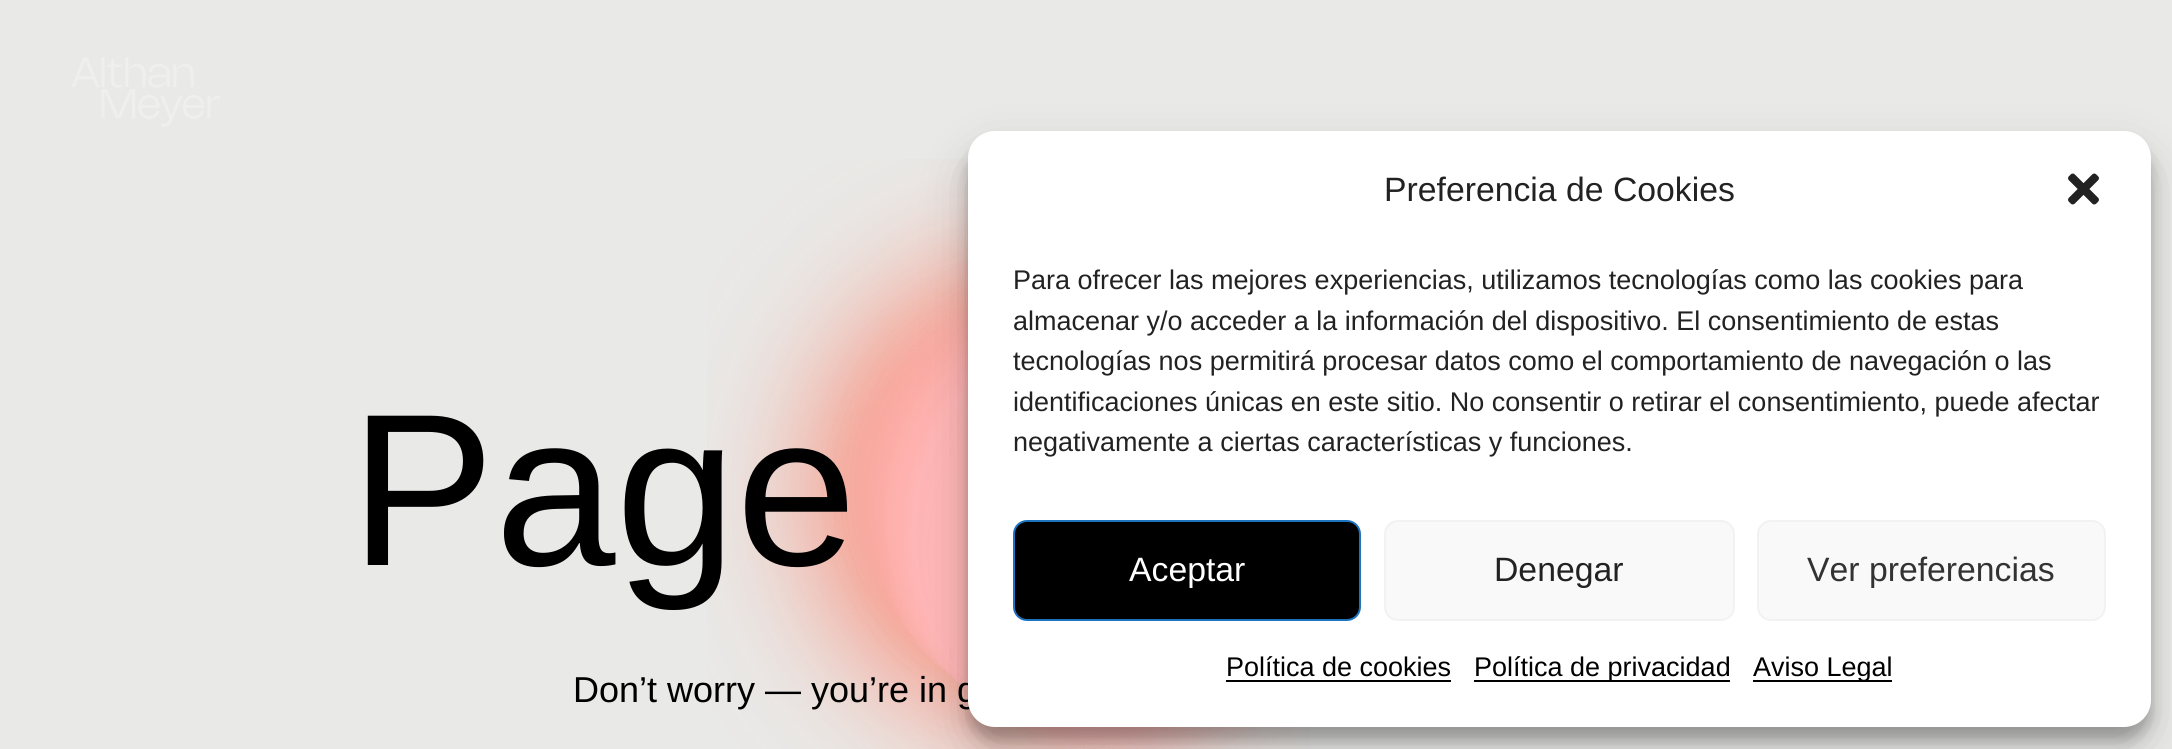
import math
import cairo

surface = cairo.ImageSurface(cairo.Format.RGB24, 2172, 749)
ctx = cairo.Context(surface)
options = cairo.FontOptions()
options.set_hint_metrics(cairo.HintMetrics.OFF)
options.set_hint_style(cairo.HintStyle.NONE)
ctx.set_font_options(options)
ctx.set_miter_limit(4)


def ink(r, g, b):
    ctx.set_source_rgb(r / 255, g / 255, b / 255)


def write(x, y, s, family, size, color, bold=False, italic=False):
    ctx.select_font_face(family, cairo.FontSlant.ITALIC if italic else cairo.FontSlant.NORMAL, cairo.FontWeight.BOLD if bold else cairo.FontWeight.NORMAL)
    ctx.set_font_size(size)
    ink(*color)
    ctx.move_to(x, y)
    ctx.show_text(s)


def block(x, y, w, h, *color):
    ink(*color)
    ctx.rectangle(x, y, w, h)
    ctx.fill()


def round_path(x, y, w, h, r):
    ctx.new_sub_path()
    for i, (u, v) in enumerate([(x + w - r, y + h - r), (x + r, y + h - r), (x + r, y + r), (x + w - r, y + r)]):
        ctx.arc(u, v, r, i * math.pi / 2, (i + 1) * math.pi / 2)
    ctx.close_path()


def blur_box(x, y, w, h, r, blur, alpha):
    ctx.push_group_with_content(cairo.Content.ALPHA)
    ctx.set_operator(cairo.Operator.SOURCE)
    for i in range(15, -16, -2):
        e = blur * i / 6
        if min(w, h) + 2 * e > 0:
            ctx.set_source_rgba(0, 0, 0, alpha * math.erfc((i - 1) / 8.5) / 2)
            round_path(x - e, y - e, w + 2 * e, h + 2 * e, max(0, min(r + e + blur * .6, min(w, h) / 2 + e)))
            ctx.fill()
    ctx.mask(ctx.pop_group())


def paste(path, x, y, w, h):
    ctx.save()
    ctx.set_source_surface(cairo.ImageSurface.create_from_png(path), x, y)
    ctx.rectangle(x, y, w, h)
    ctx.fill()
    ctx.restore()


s1 = dict(family="Liberation Sans", size=217, color=(0, 0, 0))
s2 = dict(family="Liberation Sans", size=36, color=(0, 0, 0))
s3 = dict(family="Liberation Sans", size=33.75, color=(34, 34, 34))
s4 = dict(family="Liberation Sans", size=27, color=(34, 34, 34))
s5 = dict(family="Liberation Sans", size=33.75, color=(255, 255, 255))
s6 = dict(family="Liberation Sans", size=33.75, color=(51, 51, 51))
s7 = dict(family="Liberation Sans", size=27, color=(0, 0, 0))

ink(233, 233, 231)
ctx.paint()
paste("pic1.png", 72, 57, 148, 70)
paste("pic2.png", 707, 159, 603, 590)
write(350, 565, "Page", **s1)
write(573, 702, "Don’t worry — you’re in g", **s2)
ink(0, 0, 0)
blur_box(968, 144, 1183, 596, 27, 7, 0.23)
blur_box(968, 153, 1183, 596, 27, 22.5, 0.19)
ink(255, 255, 255)
round_path(968, 131, 1183, 596, 27)
ctx.fill()
write(1384, 201, "Preferencia de Cookies", **s3)
paste("pic3.png", 2068, 173, 31, 32)
write(1013, 289, "Para ofrecer las mejores experiencias, utilizamos tecnologías como las cookies para", **s4)
write(1013, 330, "almacenar y/o acceder a la información del dispositivo. El consentimiento de estas", **s4)
write(1013, 370, "tecnologías nos permitirá procesar datos como el comportamiento de navegación o las", **s4)
write(1013, 411, "identificaciones únicas en este sitio. No consentir o retirar el consentimiento, puede afectar", **s4)
write(1013, 451, "negativamente a ciertas características y funciones.", **s4)
ink(0, 0, 0)
round_path(1014, 521, 346, 99, 13)
ctx.fill_preserve()
ink(30, 115, 190)
ctx.stroke()
write(1129, 581, "Aceptar", **s5)
ink(249, 249, 249)
round_path(1385, 521, 349, 99, 13)
ctx.fill_preserve()
ink(242, 242, 242)
ctx.stroke()
write(1494, 581, "Denegar", **s3)
ink(249, 249, 249)
round_path(1758, 521, 347, 99, 13)
ctx.fill_preserve()
ink(242, 242, 242)
ctx.stroke()
write(1807, 581, "Ver preferencias", **s6)
write(1226, 676, "Política de cookies", **s7)
block(1226, 680, 225, 2, 0, 0, 0)
block(1474, 680, 256, 2, 0, 0, 0)
write(1474, 676, "Política de privacidad", **s7)
block(1753, 680, 139, 2, 0, 0, 0)
write(1753, 676, "Aviso Legal", **s7)
surface.write_to_png("screenshot.png")
